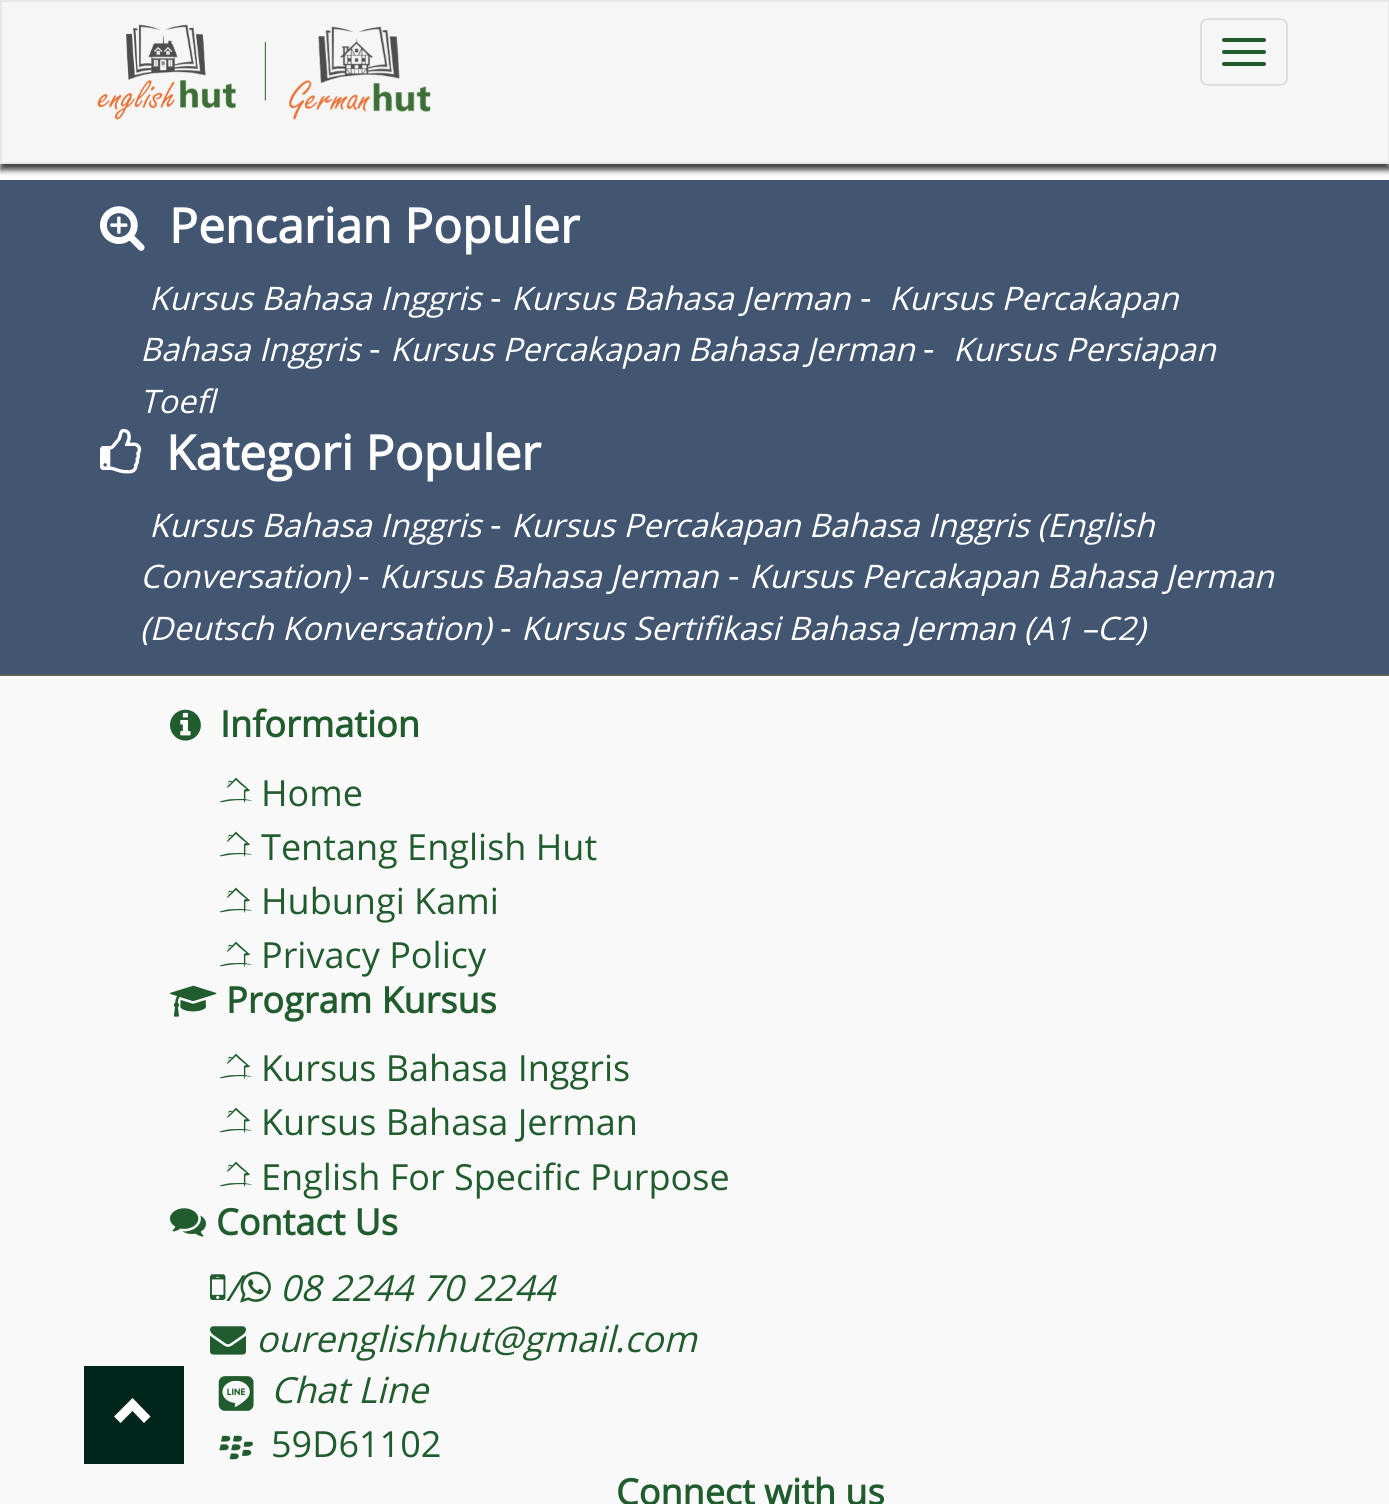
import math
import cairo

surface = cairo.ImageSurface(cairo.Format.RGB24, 1389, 1504)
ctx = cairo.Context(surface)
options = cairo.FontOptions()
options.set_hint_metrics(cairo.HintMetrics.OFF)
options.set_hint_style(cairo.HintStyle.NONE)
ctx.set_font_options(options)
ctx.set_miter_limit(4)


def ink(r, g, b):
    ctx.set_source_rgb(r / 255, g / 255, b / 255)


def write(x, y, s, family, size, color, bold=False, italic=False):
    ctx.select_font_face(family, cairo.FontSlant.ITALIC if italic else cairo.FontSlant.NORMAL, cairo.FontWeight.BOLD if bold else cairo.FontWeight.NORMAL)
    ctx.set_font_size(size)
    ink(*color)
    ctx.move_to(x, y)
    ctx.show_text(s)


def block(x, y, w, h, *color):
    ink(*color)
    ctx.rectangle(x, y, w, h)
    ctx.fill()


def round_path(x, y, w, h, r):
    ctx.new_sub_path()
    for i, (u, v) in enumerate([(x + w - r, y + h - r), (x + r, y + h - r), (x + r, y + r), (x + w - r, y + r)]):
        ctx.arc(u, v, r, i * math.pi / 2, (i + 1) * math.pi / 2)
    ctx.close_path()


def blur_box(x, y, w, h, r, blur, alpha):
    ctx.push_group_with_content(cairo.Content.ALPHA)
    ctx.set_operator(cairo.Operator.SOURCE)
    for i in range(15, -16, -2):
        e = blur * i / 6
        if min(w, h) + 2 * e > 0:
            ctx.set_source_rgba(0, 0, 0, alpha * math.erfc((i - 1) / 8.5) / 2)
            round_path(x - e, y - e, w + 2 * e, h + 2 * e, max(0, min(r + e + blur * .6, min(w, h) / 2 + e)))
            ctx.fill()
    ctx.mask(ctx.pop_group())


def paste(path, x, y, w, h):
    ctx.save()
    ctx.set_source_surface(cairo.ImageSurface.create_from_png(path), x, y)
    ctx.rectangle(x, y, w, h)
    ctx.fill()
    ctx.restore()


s1 = dict(family="Open Sans", size=48, color=(255, 255, 255), bold=True)
s2 = dict(family="Open Sans", size=32.4, color=(255, 255, 255), italic=True)
s3 = dict(family="Open Sans", size=36, color=(255, 255, 255))
s4 = dict(family="Open Sans", size=36, color=(32, 92, 46), bold=True)
s5 = dict(family="Open Sans", size=36, color=(32, 92, 46))
s6 = dict(family="Open Sans", size=36, color=(32, 92, 46), italic=True)

ink(255, 255, 255)
ctx.paint()
ink(0, 0, 0)
blur_box(0, 6, 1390, 164, 0, 3, 0.75)
ink(246, 246, 246)
ctx.rectangle(1, 1, 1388, 162)
ctx.fill_preserve()
ink(231, 231, 231)
ctx.stroke()
paste("pic1.png", 97, 24, 334, 96)
round_path(1201, 19, 86, 66, 7)
ink(221, 221, 221)
ctx.stroke()
ink(32, 92, 46)
round_path(1222, 38, 44, 4, 2)
ctx.fill()
round_path(1222, 50, 44, 4, 2)
ctx.fill()
round_path(1222, 62, 44, 4, 2)
ctx.fill()
block(0, 180, 1389, 494, 66, 85, 113)
block(0, 674, 1389, 2, 94, 94, 94)
paste("pic2.png", 100, 206, 45, 45)
write(169, 243, "Pencarian Populer", **s1)
write(149, 310, "Kursus Bahasa Inggris", **s2)
write(490, 310, "-", **s3)
write(511, 310, "Kursus Bahasa Jerman", **s2)
write(860, 310, "-", **s3)
write(889, 310, "Kursus Percakapan", **s2)
write(140, 361, "Bahasa Inggris", **s2)
write(369, 361, "-", **s3)
write(390, 361, "Kursus Percakapan Bahasa Jerman", **s2)
write(923, 361, "-", **s3)
write(953, 361, "Kursus Persiapan", **s2)
write(140, 413, "Toefl", **s2)
paste("pic3.png", 100, 428, 42, 46)
write(166, 470, "Kategori Populer", **s1)
write(149, 537, "Kursus Bahasa Inggris", **s2)
write(490, 537, "-", **s3)
write(511, 537, "Kursus Percakapan Bahasa Inggris (English", **s2)
write(140, 588, "Conversation)", **s2)
write(358, 588, "-", **s3)
write(379, 588, "Kursus Bahasa Jerman", **s2)
write(728, 588, "-", **s3)
write(749, 588, "Kursus Percakapan Bahasa Jerman", **s2)
write(140, 640, "(Deutsch Konversation)", **s2)
write(500, 640, "-", **s3)
write(521, 640, "Kursus Sertifikasi Bahasa Jerman (A1 –C2)", **s2)
block(0, 676, 1389, 828, 249, 249, 249)
block(84, 1366, 100, 98, 0, 38, 28)
ink(255, 255, 255)
ctx.new_path()
ctx.move_to(150.5, 1416.5)
ctx.line_to(144, 1423)
ctx.line_to(132.5, 1411)
ctx.line_to(120.5, 1423)
ctx.line_to(114, 1416.5)
ctx.line_to(132.5, 1398)
ctx.close_path()
ctx.fill()
paste("pic4.png", 170, 709, 31, 32)
write(220, 737, "Information", **s4)
paste("pic5.png", 219, 777, 33, 26)
write(261, 806, "Home", **s5)
paste("pic5.png", 219, 831, 33, 26)
write(261, 860, "Tentang English Hut", **s5)
paste("pic5.png", 219, 887, 33, 26)
write(261, 914, "Hubungi Kami", **s5)
paste("pic5.png", 219, 941, 33, 26)
write(261, 968, "Privacy Policy", **s5)
paste("pic6.png", 170, 985, 47, 32)
write(226, 1013, "Program Kursus", **s4)
paste("pic5.png", 219, 1053, 33, 26)
write(261, 1081, "Kursus Bahasa Inggris", **s5)
paste("pic5.png", 219, 1107, 33, 26)
write(261, 1135, "Kursus Bahasa Jerman", **s5)
paste("pic5.png", 219, 1161, 33, 26)
write(261, 1190, "English For Specific Purpose", **s5)
paste("pic7.png", 170, 1208, 36, 29)
write(216, 1235, "Contact Us", **s4)
paste("pic8.png", 210, 1274, 16, 26)
write(226, 1301, "/", **s6)
paste("pic9.png", 240, 1271, 31, 32)
write(280, 1301, "08 2244 70 2244", **s6)
paste("pic10.png", 210, 1326, 36, 29)
write(256, 1352, "ourenglishhut@gmail.com", **s6)
paste("pic11.png", 218, 1376, 36, 35)
write(271, 1403, "Chat Line", **s6)
paste("pic12.png", 219, 1435, 34, 25)
write(271, 1457, "59D61102", **s5)
write(616, 1505, "Connect with us", **s4)
surface.write_to_png("screenshot.png")
